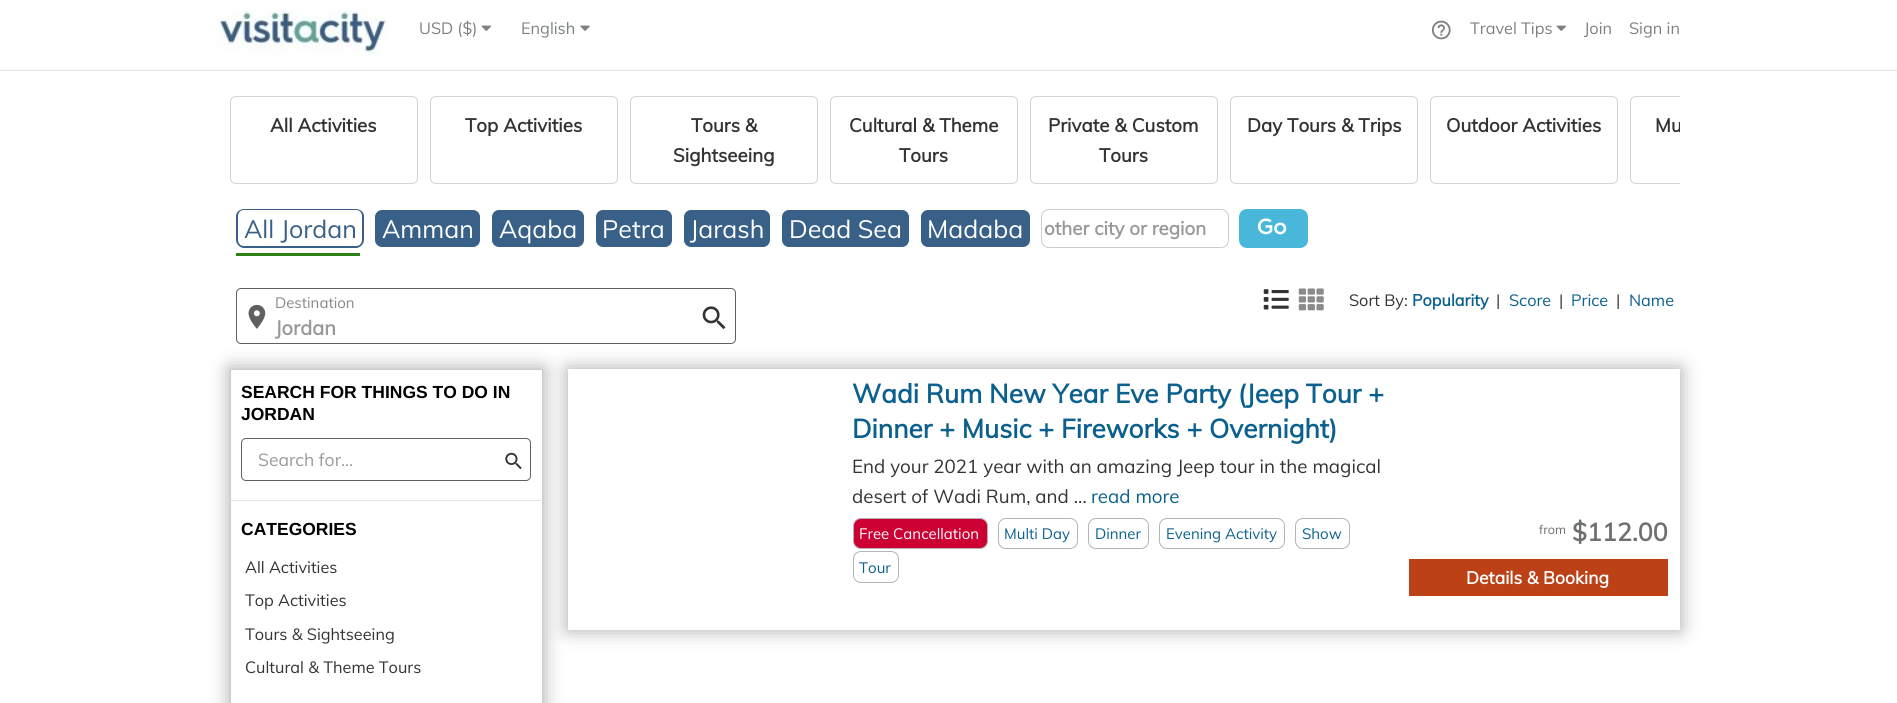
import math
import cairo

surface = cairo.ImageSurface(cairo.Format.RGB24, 1897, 703)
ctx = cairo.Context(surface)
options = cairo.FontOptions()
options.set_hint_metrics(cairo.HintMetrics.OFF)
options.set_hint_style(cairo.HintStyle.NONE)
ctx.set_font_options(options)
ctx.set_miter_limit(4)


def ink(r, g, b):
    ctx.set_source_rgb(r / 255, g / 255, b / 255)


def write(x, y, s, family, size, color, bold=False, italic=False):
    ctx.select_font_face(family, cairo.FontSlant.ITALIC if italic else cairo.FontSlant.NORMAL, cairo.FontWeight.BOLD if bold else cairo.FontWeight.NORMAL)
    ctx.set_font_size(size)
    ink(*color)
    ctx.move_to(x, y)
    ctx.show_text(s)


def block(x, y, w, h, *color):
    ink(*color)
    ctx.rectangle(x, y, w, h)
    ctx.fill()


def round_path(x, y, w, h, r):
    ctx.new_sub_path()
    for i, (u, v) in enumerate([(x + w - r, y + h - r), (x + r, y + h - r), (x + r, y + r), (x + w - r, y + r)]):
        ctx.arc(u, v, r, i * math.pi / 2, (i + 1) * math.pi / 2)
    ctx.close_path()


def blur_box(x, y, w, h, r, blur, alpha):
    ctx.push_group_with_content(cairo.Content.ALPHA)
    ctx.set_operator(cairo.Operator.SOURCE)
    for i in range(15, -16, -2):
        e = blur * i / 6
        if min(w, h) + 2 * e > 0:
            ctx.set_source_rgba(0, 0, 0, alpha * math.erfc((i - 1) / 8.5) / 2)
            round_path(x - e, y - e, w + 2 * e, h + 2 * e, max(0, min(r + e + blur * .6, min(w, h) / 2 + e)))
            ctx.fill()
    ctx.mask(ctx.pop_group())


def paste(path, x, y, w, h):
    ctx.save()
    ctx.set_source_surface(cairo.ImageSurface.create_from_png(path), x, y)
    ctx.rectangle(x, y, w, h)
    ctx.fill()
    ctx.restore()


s1 = dict(family="Muli", size=16.25, color=(124, 128, 130))
s2 = dict(family="Muli", size=18.75, color=(51, 51, 51), bold=True)
s3 = dict(family="Muli", size=25, color=(57, 96, 135))
s4 = dict(family="Muli", size=25, color=(255, 255, 255))
s5 = dict(family="Muli", size=18.75, color=(153, 153, 153), bold=True)
s6 = dict(family="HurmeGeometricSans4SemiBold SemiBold", size=22, color=(255, 255, 255))
s7 = dict(family="Muli", size=15, color=(140, 135, 135))
s8 = dict(family="Muli", size=20, color=(153, 153, 153), bold=True)
s9 = dict(family="Muli", size=16.25, color=(51, 51, 51))
s10 = dict(family="Muli", size=16.25, color=(12, 96, 142), bold=True)
s11 = dict(family="Muli", size=16.25, color=(12, 96, 142))
s12 = dict(family="Liberation Sans", size=17.5, color=(0, 0, 0), bold=True)
s13 = dict(family="Muli", size=17.5, color=(153, 153, 153))
s14 = dict(family="Muli", size=26.25, color=(12, 96, 142), bold=True)
s15 = dict(family="Muli", size=18.75, color=(51, 51, 51))
s16 = dict(family="Muli", size=18.75, color=(12, 96, 142))
s17 = dict(family="Muli", size=15, color=(255, 255, 255))
s18 = dict(family="Muli", size=15, color=(12, 96, 142))
s19 = dict(family="Muli", size=12.5, color=(109, 112, 114))
s20 = dict(family="Muli", size=25, color=(109, 112, 114), bold=True)
s21 = dict(family="Muli", size=17.5, color=(255, 255, 255), bold=True)

ink(255, 255, 255)
ctx.paint()
paste("pic1.png", 217, 10, 171, 45)
write(419, 34, "USD ($)", **s1)
paste("pic2.png", 481, 25, 10, 6)
write(521, 34, "English", **s1)
paste("pic3.png", 580, 25, 10, 6)
paste("pic4.png", 1431, 20, 20, 20)
write(1470, 34, "Travel Tips", **s1)
paste("pic2.png", 1556, 25, 10, 6)
write(1584, 34, "Join", **s1)
write(1629, 34, "Sign in", **s1)
block(0, 70, 1897, 1, 224, 225, 229)
round_path(230.5, 96.5, 187, 87, 5.5)
ink(215, 212, 210)
ctx.set_line_width(1)
ctx.stroke()
write(270, 132, "All Activities", **s2)
round_path(430.5, 96.5, 187, 87, 5.5)
ink(215, 212, 210)
ctx.stroke()
write(465, 132, "Top Activities", **s2)
round_path(630.5, 96.5, 187, 87, 5.5)
ink(215, 212, 210)
ctx.stroke()
write(691, 132, "Tours &", **s2)
write(673, 162, "Sightseeing", **s2)
round_path(830.5, 96.5, 187, 87, 5.5)
ink(215, 212, 210)
ctx.stroke()
write(849, 132, "Cultural & Theme", **s2)
write(899, 162, "Tours", **s2)
round_path(1030.5, 96.5, 187, 87, 5.5)
ink(215, 212, 210)
ctx.stroke()
write(1048, 132, "Private & Custom", **s2)
write(1099, 162, "Tours", **s2)
round_path(1230.5, 96.5, 187, 87, 5.5)
ink(215, 212, 210)
ctx.stroke()
write(1247, 132, "Day Tours & Trips", **s2)
round_path(1430.5, 96.5, 187, 87, 5.5)
ink(215, 212, 210)
ctx.stroke()
write(1446, 132, "Outdoor Activities", **s2)
ctx.save()
ctx.rectangle(218, 71, 1462, 113)
ctx.clip()
round_path(1630.5, 96.5, 187, 87, 5.5)
ink(215, 212, 210)
ctx.stroke()
write(1655, 132, "Mu", **s2)
ctx.restore()
ink(57, 96, 135)
ctx.set_fill_rule(cairo.FillRule.EVEN_ODD)
ctx.new_path()
ctx.move_to(244, 209)
ctx.line_to(280, 209)
ctx.line_to(280, 248)
ctx.line_to(244, 248)
ctx.curve_to(240, 248, 236, 244, 236, 240)
ctx.line_to(236, 216)
ctx.curve_to(236, 212, 240, 209, 244, 209)
ctx.close_path()
ctx.move_to(244, 210)
ctx.line_to(280, 210)
ctx.line_to(280, 246)
ctx.line_to(244, 246)
ctx.curve_to(240, 246, 238, 243, 238, 240)
ctx.line_to(238, 216)
ctx.curve_to(238, 213, 240, 210, 244, 210)
ctx.close_path()
ctx.fill()
ctx.new_path()
ctx.move_to(280, 209)
ctx.line_to(356, 209)
ctx.curve_to(360, 209, 364, 212, 364, 216)
ctx.line_to(364, 240)
ctx.curve_to(364, 244, 360, 248, 356, 248)
ctx.line_to(280, 248)
ctx.close_path()
ctx.move_to(280, 210)
ctx.line_to(356, 210)
ctx.curve_to(360, 210, 362, 213, 362, 216)
ctx.line_to(362, 240)
ctx.curve_to(362, 243, 360, 246, 356, 246)
ctx.line_to(280, 246)
ctx.close_path()
ctx.fill()
write(244, 238, "All Jordan", **s3)
block(236, 253, 124, 3, 45, 128, 23)
ink(57, 96, 135)
round_path(374.5, 209.5, 106, 38, 7.5)
ctx.fill_preserve()
ink(255, 255, 255)
ctx.stroke()
write(382, 238, "Amman", **s4)
ink(57, 96, 135)
round_path(491.5, 209.5, 93, 38, 7.5)
ctx.fill_preserve()
ink(255, 255, 255)
ctx.stroke()
write(499, 238, "Aqaba", **s4)
ink(57, 96, 135)
round_path(595.5, 209.5, 77, 38, 7.5)
ctx.fill_preserve()
ink(255, 255, 255)
ctx.stroke()
write(602, 238, "Petra", **s4)
ink(57, 96, 135)
round_path(683.5, 209.5, 87, 38, 7.5)
ctx.fill_preserve()
ink(255, 255, 255)
ctx.stroke()
write(690, 238, "Jarash", **s4)
ink(57, 96, 135)
round_path(781.5, 209.5, 128, 38, 7.5)
ctx.fill_preserve()
ink(255, 255, 255)
ctx.stroke()
write(789, 238, "Dead Sea", **s4)
ink(57, 96, 135)
round_path(920.5, 209.5, 110, 38, 7.5)
ctx.fill_preserve()
ink(255, 255, 255)
ctx.stroke()
write(927, 238, "Madaba", **s4)
round_path(1041.5, 209.5, 187, 38, 7.5)
ink(204, 204, 204)
ctx.stroke()
write(1044, 235, "other city or region", **s5)
ink(73, 183, 217)
round_path(1239, 209, 69, 39, 8)
ctx.fill()
write(1257, 234, "Go", **s6)
round_path(236.5, 288.5, 499, 55, 4.5)
ink(96, 96, 96)
ctx.stroke()
paste("pic5.png", 248, 304, 18, 25)
write(275, 308, "Destination", **s7)
paste("pic6.png", 702, 306, 24, 24)
write(275, 335, "Jordan", **s8)
paste("pic7.png", 1263, 289, 26, 21)
paste("pic8.png", 1298, 288, 26, 23)
write(1349, 306, "Sort By:", **s9)
write(1412, 306, "Popularity", **s10)
write(1496, 306, "|", **s9)
write(1509, 306, "Score", **s11)
write(1559, 306, "|", **s9)
write(1571, 306, "Price", **s11)
write(1616, 306, "|", **s9)
write(1629, 306, "Name", **s11)
ctx.save()
ctx.new_path()
ctx.move_to(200, 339)
ctx.line_to(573, 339)
ctx.line_to(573, 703)
ctx.line_to(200, 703)
ctx.close_path()
ctx.move_to(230, 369)
ctx.line_to(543, 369)
ctx.line_to(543, 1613)
ctx.line_to(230, 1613)
ctx.close_path()
ctx.clip()
ink(0, 0, 0)
blur_box(230, 369, 313, 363, 0, 9.5, 0.35)
ctx.restore()
ctx.save()
ctx.new_path()
ctx.move_to(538, 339)
ctx.line_to(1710, 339)
ctx.line_to(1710, 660)
ctx.line_to(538, 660)
ctx.close_path()
ctx.move_to(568, 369)
ctx.line_to(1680, 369)
ctx.line_to(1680, 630)
ctx.line_to(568, 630)
ctx.close_path()
ctx.clip()
ink(0, 0, 0)
blur_box(568, 369, 1112, 261, 0, 9.5, 0.35)
ctx.restore()
ctx.rectangle(230.5, 369.5, 312, 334)
ink(204, 204, 204)
ctx.stroke()
write(241, 398, "SEARCH FOR THINGS TO DO IN", **s12)
write(241, 420, "JORDAN", **s12)
round_path(241.5, 438.5, 289, 42, 4.5)
ink(96, 96, 96)
ctx.stroke()
write(258, 466, "Search for...", **s13)
paste("pic9.png", 505, 452, 17, 18)
block(231, 500, 310, 1, 226, 226, 226)
write(241, 535, "CATEGORIES", **s12)
write(245, 573, "All Activities", **s9)
write(245, 606, "Top Activities", **s9)
write(245, 640, "Tours & Sightseeing", **s9)
write(245, 673, "Cultural & Theme Tours", **s9)
write(852, 403, "Wadi Rum New Year Eve Party (Jeep Tour +", **s14)
write(852, 438, "Dinner + Music + Fireworks + Overnight)", **s14)
write(852, 473, "End your 2021 year with an amazing Jeep tour in the magical", **s15)
write(852, 503, "desert of Wadi Rum, and ...", **s15)
write(1091, 503, "read more", **s16)
ink(204, 0, 51)
round_path(853.5, 518.5, 134, 30, 7.5)
ctx.fill_preserve()
ink(180, 180, 180)
ctx.stroke()
write(859, 539, "Free Cancellation", **s17)
round_path(998.5, 518.5, 79, 30, 7.5)
ink(180, 180, 180)
ctx.stroke()
write(1004, 539, "Multi Day", **s18)
round_path(1088.5, 518.5, 60, 30, 7.5)
ink(180, 180, 180)
ctx.stroke()
write(1095, 539, "Dinner", **s18)
round_path(1159.5, 518.5, 125, 30, 7.5)
ink(180, 180, 180)
ctx.stroke()
write(1166, 539, "Evening Activity", **s18)
round_path(1295.5, 518.5, 54, 30, 7.5)
ink(180, 180, 180)
ctx.stroke()
write(1302, 539, "Show", **s18)
round_path(853.5, 551.5, 45, 31, 7.5)
ink(180, 180, 180)
ctx.stroke()
write(859, 573, "Tour", **s18)
write(1539, 534, "from", **s19)
write(1572, 541, "$112.00", **s20)
block(1409, 559, 259, 37, 189, 65, 22)
write(1466, 584, "Details & Booking", **s21)
surface.write_to_png("screenshot.png")
